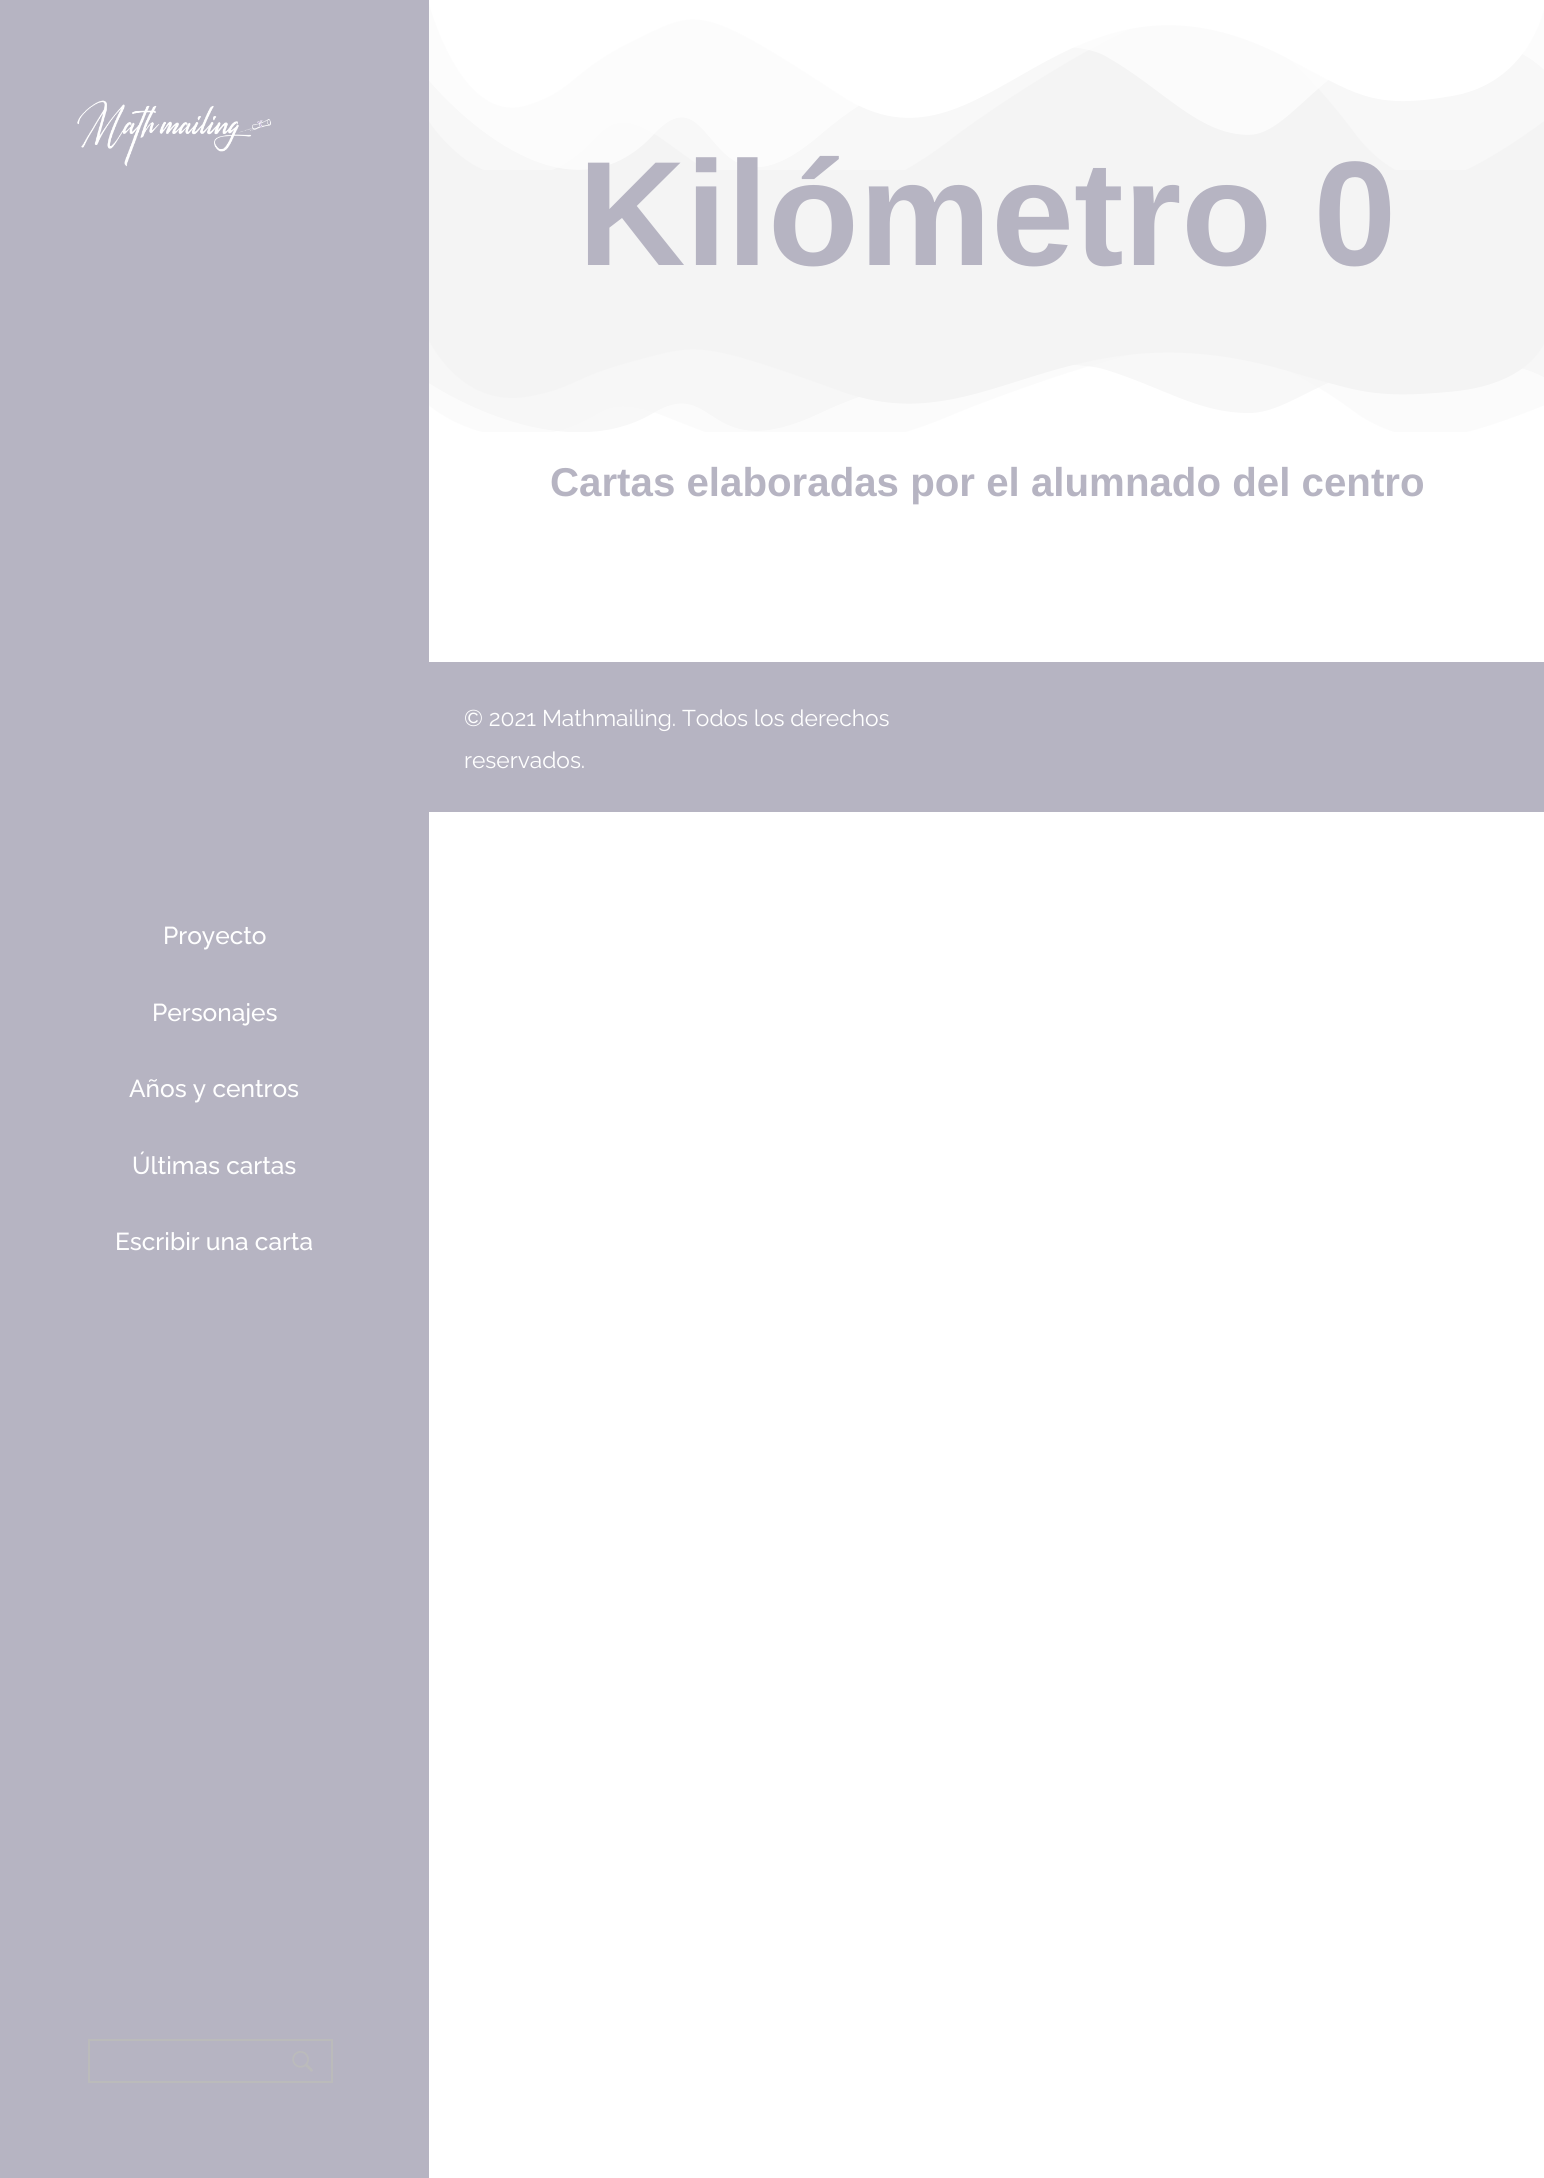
import math
import cairo

surface = cairo.ImageSurface(cairo.Format.RGB24, 1544, 2178)
ctx = cairo.Context(surface)
options = cairo.FontOptions()
options.set_hint_metrics(cairo.HintMetrics.OFF)
options.set_hint_style(cairo.HintStyle.NONE)
ctx.set_font_options(options)
ctx.set_miter_limit(4)


def ink(r, g, b):
    ctx.set_source_rgb(r / 255, g / 255, b / 255)


def write(x, y, s, family, size, color, bold=False, italic=False):
    ctx.select_font_face(family, cairo.FontSlant.ITALIC if italic else cairo.FontSlant.NORMAL, cairo.FontWeight.BOLD if bold else cairo.FontWeight.NORMAL)
    ctx.set_font_size(size)
    ink(*color)
    ctx.move_to(x, y)
    ctx.show_text(s)


def block(x, y, w, h, *color):
    ink(*color)
    ctx.rectangle(x, y, w, h)
    ctx.fill()


def paste(path, x, y, w, h):
    ctx.save()
    ctx.set_source_surface(cairo.ImageSurface.create_from_png(path), x, y)
    ctx.rectangle(x, y, w, h)
    ctx.fill()
    ctx.restore()


s1 = dict(family="Liberation Sans", size=148.75, color=(182, 180, 194), bold=True)
s2 = dict(family="Liberation Sans", size=40.25, color=(182, 180, 194), bold=True)
s3 = dict(family="Raleway", size=22.75, color=(255, 255, 255))
s4 = dict(family="Raleway Medium", size=24.5, color=(255, 255, 255))

ink(255, 255, 255)
ctx.paint()
block(429, 3, 1115, 337, 244, 244, 244)
paste("pic1.png", 429, 0, 1115, 170)
write(578, 265, "Kilómetro 0", **s1)
paste("pic2.png", 429, 340, 1115, 92)
write(550, 496, "Cartas elaboradas por el alumnado del centro", **s2)
block(429, 662, 1115, 150, 182, 180, 194)
write(464, 726, "© 2021 Mathmailing. Todos los derechos", **s3)
write(464, 768, "reservados.", **s3)
block(0, 0, 429, 2178, 182, 180, 194)
paste("pic3.png", 77, 100, 194, 67)
write(163, 944, "Proyecto", **s4)
write(152, 1021, "Personajes", **s4)
write(129, 1097, "Años y centros", **s4)
write(132, 1174, "Últimas cartas", **s4)
write(115, 1250, "Escribir una carta", **s4)
ctx.rectangle(89, 2040, 243, 42)
ink(187, 187, 187)
ctx.stroke()
paste("pic4.png", 292, 2051, 21, 21)
surface.write_to_png("screenshot.png")
